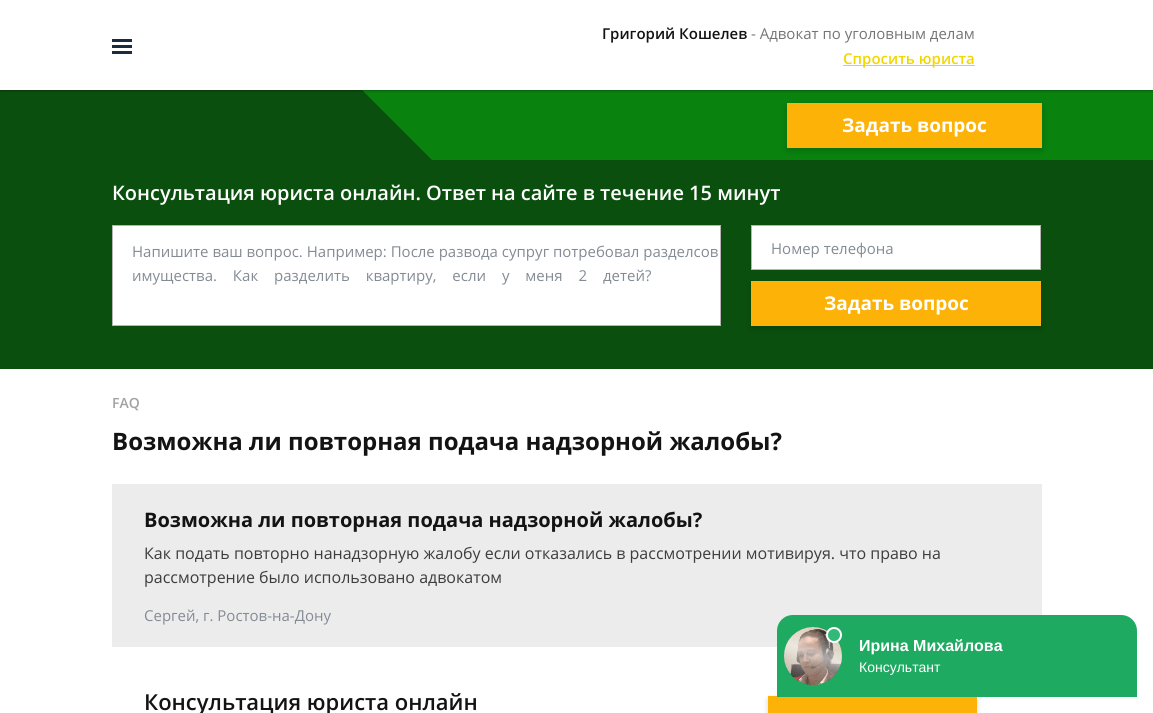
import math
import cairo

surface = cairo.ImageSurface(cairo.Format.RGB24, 1153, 713)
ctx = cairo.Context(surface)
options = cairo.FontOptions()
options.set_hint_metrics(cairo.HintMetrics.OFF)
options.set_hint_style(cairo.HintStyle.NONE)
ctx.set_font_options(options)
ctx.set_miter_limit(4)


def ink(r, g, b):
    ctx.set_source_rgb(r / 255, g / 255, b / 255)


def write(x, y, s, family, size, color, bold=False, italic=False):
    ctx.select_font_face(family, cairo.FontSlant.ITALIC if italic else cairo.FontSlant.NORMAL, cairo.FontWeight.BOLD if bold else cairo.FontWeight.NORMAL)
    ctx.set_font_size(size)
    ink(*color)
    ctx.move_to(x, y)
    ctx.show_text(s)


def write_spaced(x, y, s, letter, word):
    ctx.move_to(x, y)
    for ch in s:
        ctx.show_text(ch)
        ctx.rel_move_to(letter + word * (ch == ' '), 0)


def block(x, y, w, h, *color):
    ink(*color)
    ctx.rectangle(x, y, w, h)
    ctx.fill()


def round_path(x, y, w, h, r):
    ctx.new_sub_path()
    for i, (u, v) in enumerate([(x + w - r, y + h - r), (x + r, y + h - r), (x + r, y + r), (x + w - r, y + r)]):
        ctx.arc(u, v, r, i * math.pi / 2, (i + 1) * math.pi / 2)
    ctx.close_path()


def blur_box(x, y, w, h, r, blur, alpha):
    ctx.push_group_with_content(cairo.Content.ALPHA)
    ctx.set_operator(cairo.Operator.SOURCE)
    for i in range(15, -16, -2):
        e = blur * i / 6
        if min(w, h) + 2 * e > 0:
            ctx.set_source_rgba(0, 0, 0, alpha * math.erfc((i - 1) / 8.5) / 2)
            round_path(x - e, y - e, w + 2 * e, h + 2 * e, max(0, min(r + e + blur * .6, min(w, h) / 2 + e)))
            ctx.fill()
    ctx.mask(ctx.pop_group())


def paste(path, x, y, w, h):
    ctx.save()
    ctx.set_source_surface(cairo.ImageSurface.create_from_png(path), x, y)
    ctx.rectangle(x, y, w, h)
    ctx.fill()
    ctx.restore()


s1 = dict(family="Open Sans SemiBold", size=15, color=(19, 19, 19))
s2 = dict(family="Open Sans", size=15, color=(117, 117, 117))
s3 = dict(family="Open Sans SemiBold", size=15, color=(242, 214, 0))
s4 = dict(family="Open Sans", size=19, color=(255, 255, 255), bold=True)
s5 = dict(family="Open Sans SemiBold", size=20, color=(255, 255, 255))
s6 = dict(family="Open Sans", size=15, color=(132, 139, 148))
s7 = dict(family="Open Sans SemiBold", size=14, color=(162, 162, 162))
s8 = dict(family="Open Sans", size=24, color=(19, 19, 19), bold=True)
s9 = dict(family="Open Sans", size=20, color=(19, 19, 19), bold=True)
s10 = dict(family="Open Sans", size=16, color=(61, 61, 61))
s11 = dict(family="Open Sans SemiBold", size=22, color=(19, 19, 19))
s12 = dict(family="Liberation Sans", size=16, color=(255, 255, 255), bold=True)
s13 = dict(family="Liberation Sans", size=14, color=(255, 255, 255))

ink(255, 255, 255)
ctx.paint()
block(362, 90, 791, 70, 9, 130, 14)
block(0, 90, 362, 70, 10, 79, 13)
ctx.new_path()
ctx.move_to(362, 160)
ctx.line_to(362, 90)
ctx.line_to(432, 160)
ctx.close_path()
ctx.fill()
ctx.save()
ctx.rectangle(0, 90, 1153, 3)
ctx.clip()
ink(0, 0, 0)
blur_box(0, 0, 1153, 90, 0, 1.5, 0.5)
ctx.restore()
block(112, 39, 20, 3, 29, 43, 62)
block(112, 45, 20, 3, 29, 43, 62)
block(112, 51, 20, 3, 29, 43, 62)
write(602, 39, "Григорий Кошелев", **s1)
write(751, 39, "- Адвокат по уголовным делам", **s2)
block(843, 65, 132, 1, 242, 214, 0)
write(843, 64, "Спросить юриста", **s3)
block(0, 160, 1153, 209, 10, 79, 13)
ink(0, 0, 0)
blur_box(787, 106, 255, 45, 0, 3, 0.16)
block(787, 103, 255, 45, 252, 178, 7)
write(842, 132, "Задать вопрос", **s4)
write(112, 200, "Консультация юриста онлайн. Ответ на сайте в течение 15 минут", **s5)
ctx.rectangle(112.5, 225.5, 608, 100)
ctx.fill_preserve()
ink(184, 180, 180)
ctx.set_line_width(1)
ctx.stroke()
write(132, 257, "Напишите ваш вопрос. Например: После развода супруг потребовал разделсов", **s6)
write_spaced(132, 281, "имущества. Как разделить квартиру, если у меня 2 детей?", 0, 12)
ink(255, 255, 255)
ctx.rectangle(751.5, 225.5, 289, 44)
ctx.fill_preserve()
ink(184, 180, 180)
ctx.stroke()
write(771, 254, "Номер телефона", **s6)
ink(0, 0, 0)
blur_box(751, 284, 290, 45, 0, 3, 0.16)
block(751, 281, 290, 45, 252, 178, 7)
write(824, 310, "Задать вопрос", **s4)
write(112, 408, "FAQ", **s7)
write(112, 450, "Возможна ли повторная подача надзорной жалобы?", **s8)
block(112, 484, 930, 163, 236, 236, 236)
write(144, 527, "Возможна ли повторная подача надзорной жалобы?", **s9)
write(144, 559, "Как подать повторно нанадзорную жалобу если отказались в рассмотрении мотивируя. что право на", **s10)
write(144, 583, "рассмотрение было использовано адвокатом", **s10)
write(144, 621, "Сергей, г. Ростов-на-Дону", **s6)
write(144, 710, "Консультация юриста онлайн", **s11)
ink(0, 0, 0)
blur_box(768, 699, 209, 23, 0, 3, 0.16)
block(768, 696, 209, 17, 252, 178, 7)
ink(30, 170, 97)
ctx.new_path()
ctx.move_to(793, 615)
ctx.line_to(1121, 615)
ctx.curve_to(1130, 615, 1137, 622, 1137, 631)
ctx.line_to(1137, 697)
ctx.line_to(777, 697)
ctx.line_to(777, 631)
ctx.curve_to(777, 622, 784, 615, 793, 615)
ctx.close_path()
ctx.fill()
ink(23, 128, 73)
ctx.arc(813, 656, 29, 0, 2 * math.pi)
ctx.fill()
paste("pic1.png", 784, 627, 58, 58)
gradient = cairo.LinearGradient(823, 632, 803, 687)
gradient.add_color_stop_rgba(0, 1, 1, 1, 0)
gradient.add_color_stop_rgba(0.4, 1, 1, 1, 0.6)
gradient.add_color_stop_rgba(0.6, 1, 1, 1, 0.36)
gradient.add_color_stop_rgba(1, 1, 1, 1, 0)
ctx.set_source(gradient)
ctx.new_path()
ctx.move_to(810, 627)
ctx.line_to(834, 636)
ctx.curve_to(839, 641, 842, 648, 842, 656)
ctx.curve_to(842, 672, 829, 685, 813, 685)
ctx.curve_to(797, 685, 784, 672, 784, 656)
ctx.curve_to(784, 641, 795, 629, 810, 627)
ctx.close_path()
ctx.fill()
ink(49, 185, 120)
ctx.arc(834, 635, 7, 0, 2 * math.pi)
ctx.fill_preserve()
ink(255, 255, 255)
ctx.set_line_width(2)
ctx.stroke()
write(859, 651, "Ирина Михайлова", **s12)
write(859, 672, "Консультант", **s13)
surface.write_to_png("screenshot.png")
